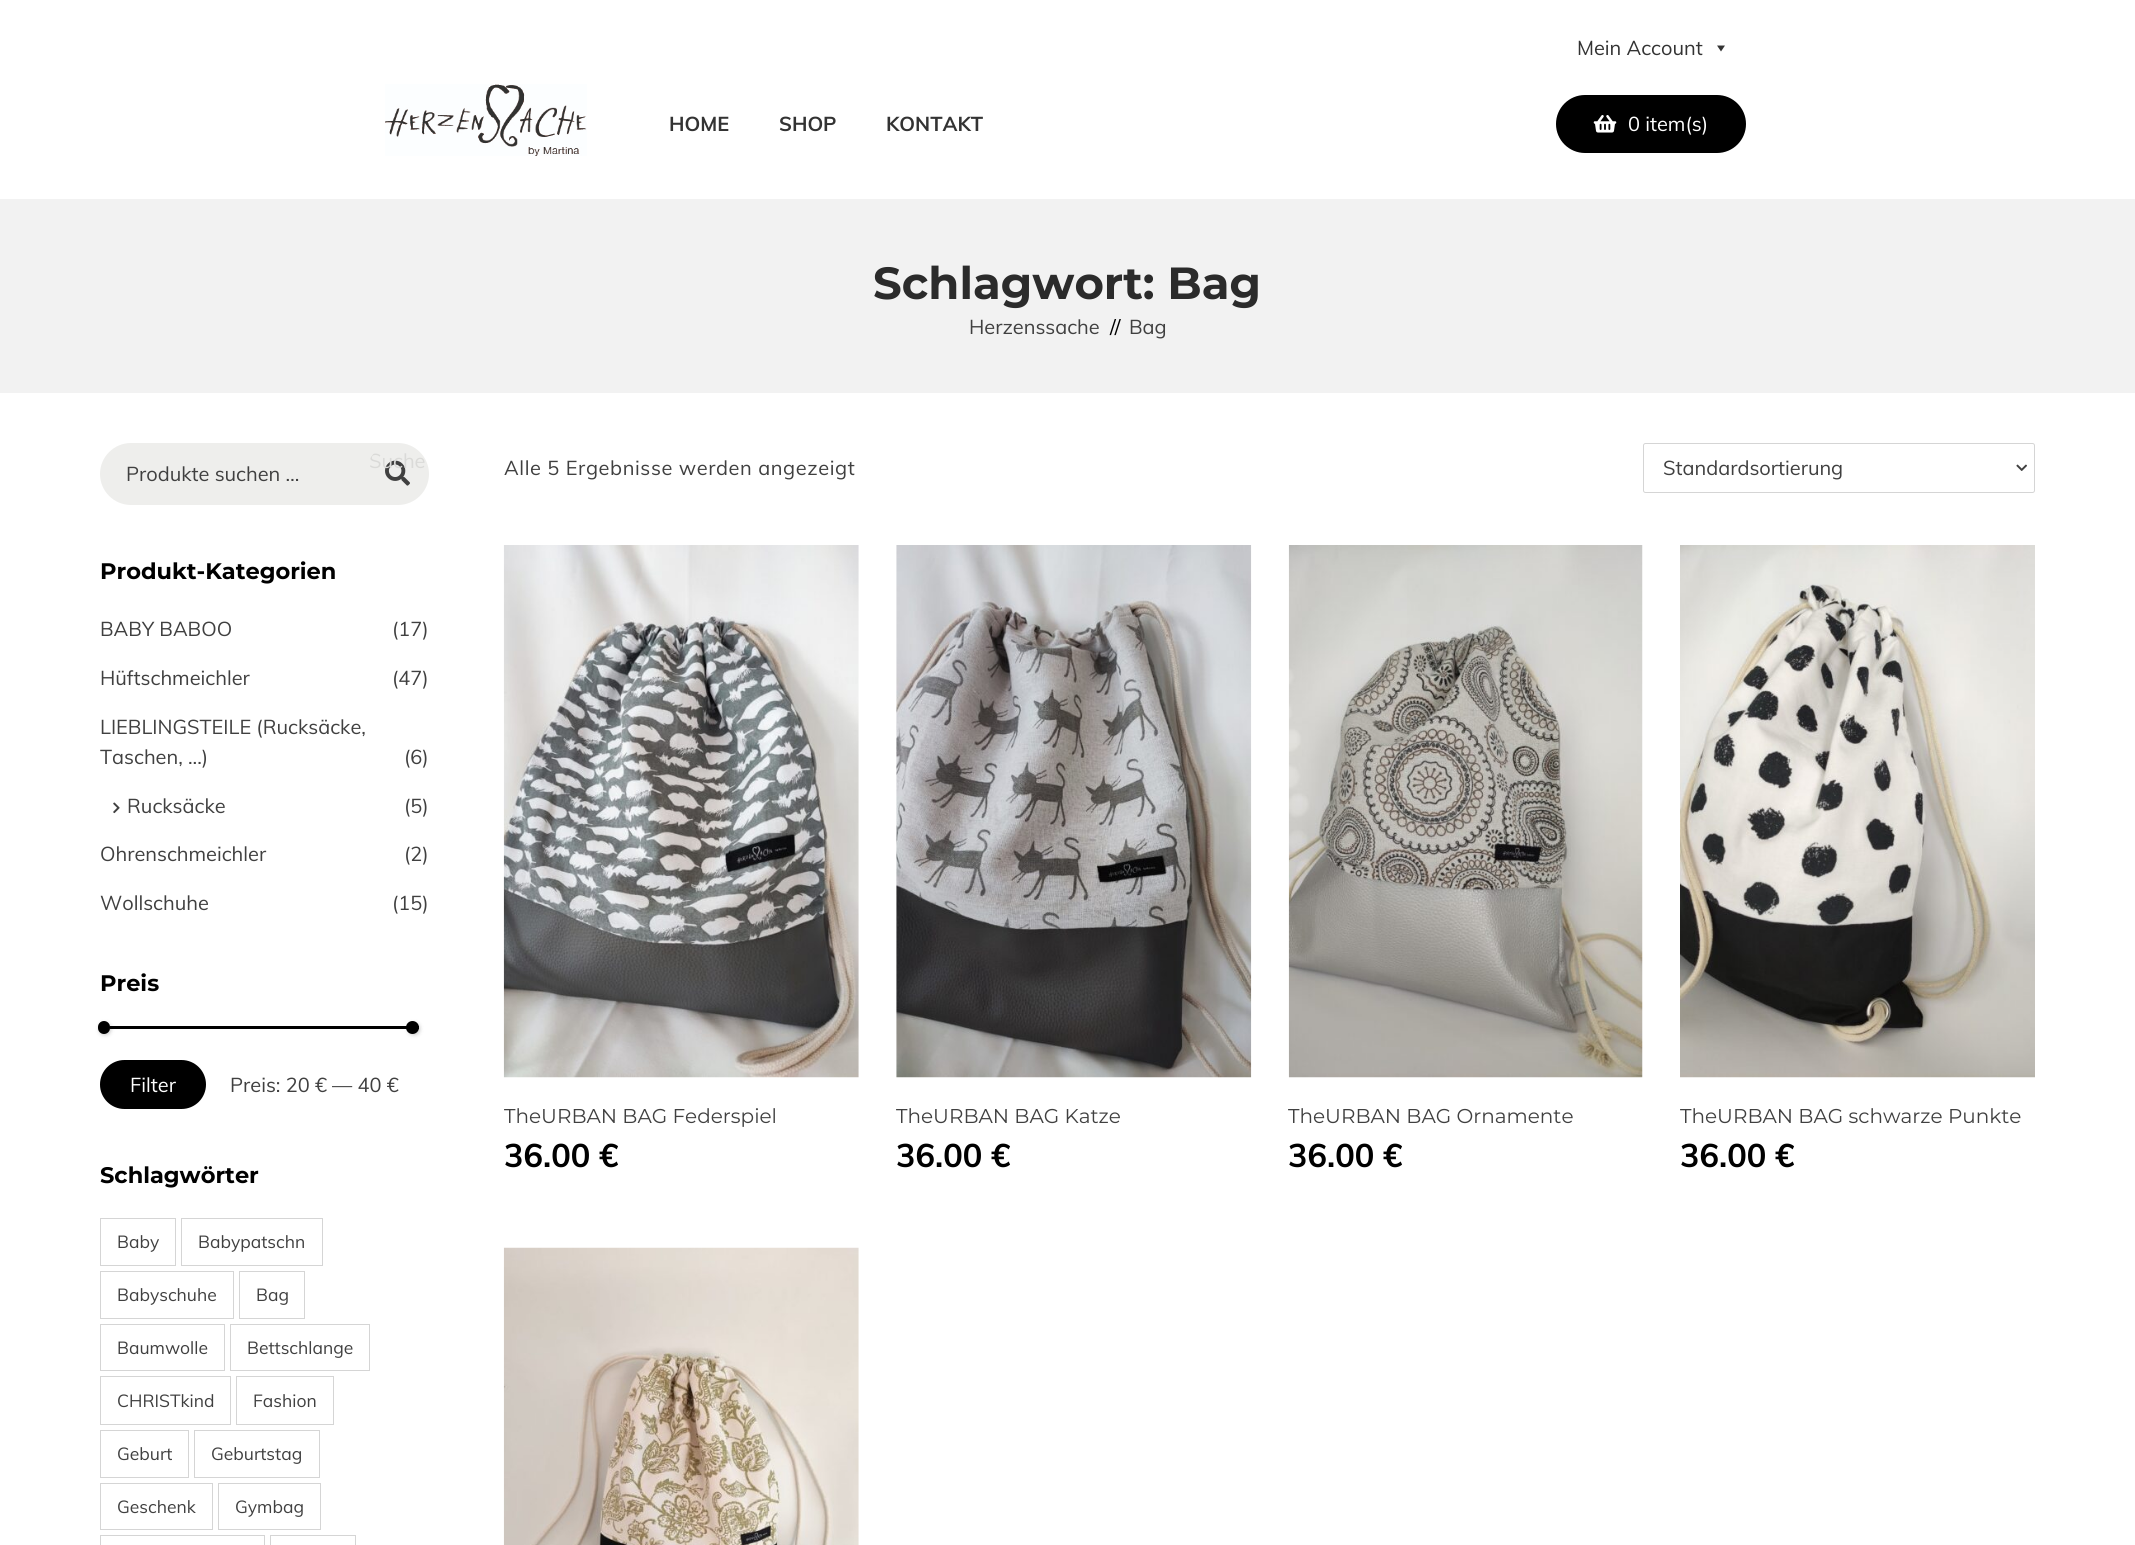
import math
import cairo

surface = cairo.ImageSurface(cairo.Format.RGB24, 2135, 1545)
ctx = cairo.Context(surface)
options = cairo.FontOptions()
options.set_hint_metrics(cairo.HintMetrics.OFF)
options.set_hint_style(cairo.HintStyle.NONE)
ctx.set_font_options(options)
ctx.set_miter_limit(4)


def ink(r, g, b):
    ctx.set_source_rgb(r / 255, g / 255, b / 255)


def write(x, y, s, family, size, color, bold=False, italic=False):
    ctx.select_font_face(family, cairo.FontSlant.ITALIC if italic else cairo.FontSlant.NORMAL, cairo.FontWeight.BOLD if bold else cairo.FontWeight.NORMAL)
    ctx.set_font_size(size)
    ink(*color)
    ctx.move_to(x, y)
    ctx.show_text(s)


def write_spaced(x, y, s, letter, word):
    ctx.move_to(x, y)
    for ch in s:
        ctx.show_text(ch)
        ctx.rel_move_to(letter + word * (ch == ' '), 0)


def block(x, y, w, h, *color):
    ink(*color)
    ctx.rectangle(x, y, w, h)
    ctx.fill()


def round_path(x, y, w, h, r):
    ctx.new_sub_path()
    for i, (u, v) in enumerate([(x + w - r, y + h - r), (x + r, y + h - r), (x + r, y + r), (x + w - r, y + r)]):
        ctx.arc(u, v, r, i * math.pi / 2, (i + 1) * math.pi / 2)
    ctx.close_path()


def blur_box(x, y, w, h, r, blur, alpha):
    ctx.push_group_with_content(cairo.Content.ALPHA)
    ctx.set_operator(cairo.Operator.SOURCE)
    for i in range(15, -16, -2):
        e = blur * i / 6
        if min(w, h) + 2 * e > 0:
            ctx.set_source_rgba(0, 0, 0, alpha * math.erfc((i - 1) / 8.5) / 2)
            round_path(x - e, y - e, w + 2 * e, h + 2 * e, max(0, min(r + e + blur * .6, min(w, h) / 2 + e)))
            ctx.fill()
    ctx.mask(ctx.pop_group())


def paste(path, x, y, w, h):
    ctx.save()
    ctx.set_source_surface(cairo.ImageSurface.create_from_png(path), x, y)
    ctx.rectangle(x, y, w, h)
    ctx.fill()
    ctx.restore()


s1 = dict(family="Muli", size=20, color=(51, 51, 51))
s2 = dict(family="Muli", size=20, color=(51, 51, 51), bold=True)
s3 = dict(family="Muli", size=20, color=(255, 255, 255))
s4 = dict(family="Montserrat", size=45, color=(43, 43, 43), bold=True)
s5 = dict(family="Muli", size=20, color=(64, 64, 64))
s6 = dict(family="Muli", size=20, color=(218, 218, 216))
s7 = dict(family="Montserrat", size=22.5, color=(0, 0, 0), bold=True)
s8 = dict(family="Muli", size=17.5, color=(64, 64, 64))
s9 = dict(family="Montserrat", size=20, color=(64, 64, 64))
s10 = dict(family="Muli", size=32.5, color=(0, 0, 0), bold=True)

ink(255, 255, 255)
ctx.paint()
write(1577, 55, "Mein Account", **s1)
ctx.new_path()
ctx.move_to(1725, 45.5)
ctx.line_to(1721, 51.5)
ctx.line_to(1717, 45.5)
ctx.close_path()
ctx.fill()
paste("pic1.png", 385, 84, 202, 72)
write(669, 131, "HOME", **s2)
write(779, 131, "SHOP", **s2)
write(886, 131, "KONTAKT", **s2)
ink(0, 0, 0)
round_path(1556, 95, 190, 58, 29)
ctx.fill()
paste("pic2.png", 1593, 115, 24, 18)
write(1628, 131, "0 item(s)", **s3)
block(0, 199, 2135, 194, 242, 242, 242)
write(873, 299, "Schlagwort: Bag", **s4)
write(969, 334, "Herzenssache", **s5)
ink(0, 0, 0)
write_spaced(1110, 334, "//", -1, 0)
write(1129, 334, "Bag", **s5)
ink(238, 238, 236)
round_path(100, 443, 329, 62, 31)
ctx.fill()
paste("pic3.png", 385, 460, 25, 26)
ctx.save()
round_path(366, 443, 63, 62, 31)
ctx.clip()
write(369, 468, "Suche", **s6)
ctx.restore()
write(126, 481, "Produkte suchen …", **s5)
write(100, 579, "Produkt-Kategorien", **s7)
write(100, 636, "BABY BABOO", **s5)
write(392, 636, "(17)", **s5)
write(100, 685, "Hüftschmeichler", **s5)
write(392, 685, "(47)", **s5)
write(100, 734, "LIEBLINGSTEILE (Rucksäcke,", **s5)
write(100, 764, "Taschen, ...)", **s5)
write(404, 764, "(6)", **s5)
paste("pic4.png", 113, 802, 7, 12)
write(127, 813, "Rucksäcke", **s5)
write(404, 813, "(5)", **s5)
write(100, 861, "Ohrenschmeichler", **s5)
write(404, 861, "(2)", **s5)
write(100, 910, "Wollschuhe", **s5)
write(392, 910, "(15)", **s5)
write(100, 991, "Preis", **s7)
block(110, 1026, 309, 3, 0, 0, 0)
ink(0, 0, 0)
blur_box(99, 1023, 12, 12, 6, 2, 0.2)
ink(0, 0, 0)
round_path(98, 1021, 12, 13, 6)
ctx.fill()
ink(0, 0, 0)
blur_box(408, 1023, 12, 12, 6, 2, 0.2)
ink(0, 0, 0)
ctx.arc(412.5, 1027.5, 6.5, 0, 2 * math.pi)
ctx.fill()
round_path(100, 1060, 106, 49, 24.5)
ctx.fill()
write(130, 1092, "Filter", **s3)
write(230, 1092, "Preis: 20 € — 40 €", **s5)
write(100, 1183, "Schlagwörter", **s7)
ctx.rectangle(100.5, 1218.5, 75, 47)
ink(213, 213, 213)
ctx.set_line_width(1)
ctx.stroke()
write(117, 1248, "Baby", **s8)
ctx.rectangle(181.5, 1218.5, 141, 47)
ink(213, 213, 213)
ctx.stroke()
write(198, 1248, "Babypatschn", **s8)
ctx.rectangle(100.5, 1271.5, 133, 47)
ink(213, 213, 213)
ctx.stroke()
write(117, 1301, "Babyschuhe", **s8)
ctx.rectangle(239.5, 1271.5, 65, 47)
ink(213, 213, 213)
ctx.stroke()
write(256, 1301, "Bag", **s8)
ctx.rectangle(100.5, 1324.5, 124, 46)
ink(213, 213, 213)
ctx.stroke()
write(117, 1354, "Baumwolle", **s8)
ctx.rectangle(230.5, 1324.5, 139, 46)
ink(213, 213, 213)
ctx.stroke()
write(247, 1354, "Bettschlange", **s8)
ctx.rectangle(100.5, 1376.5, 130, 48)
ink(213, 213, 213)
ctx.stroke()
write(117, 1407, "CHRISTkind", **s8)
ctx.rectangle(236.5, 1376.5, 97, 48)
ink(213, 213, 213)
ctx.stroke()
write(253, 1407, "Fashion", **s8)
ctx.rectangle(100.5, 1430.5, 88, 47)
ink(213, 213, 213)
ctx.stroke()
write(117, 1460, "Geburt", **s8)
ctx.rectangle(194.5, 1430.5, 125, 47)
ink(213, 213, 213)
ctx.stroke()
write(211, 1460, "Geburtstag", **s8)
ctx.rectangle(100.5, 1483.5, 112, 46)
ink(213, 213, 213)
ctx.stroke()
write(117, 1513, "Geschenk", **s8)
ctx.rectangle(218.5, 1483.5, 102, 46)
ink(213, 213, 213)
ctx.stroke()
write(235, 1513, "Gymbag", **s8)
ctx.rectangle(100.5, 1535.5, 164, 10)
ink(213, 213, 213)
ctx.stroke()
ctx.rectangle(270.5, 1535.5, 85, 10)
ctx.stroke()
ctx.set_font_size(20)
ink(64, 64, 64)
write_spaced(504, 475, "Alle 5 Ergebnisse werden angezeigt", 0.6, 0)
round_path(1643.5, 443.5, 391, 49, 2)
ink(213, 213, 213)
ctx.stroke()
write(1663, 475, "Standardsortierung", **s5)
paste("pic5.png", 2016, 464, 11, 7)
paste("pic6.png", 503, 545, 356, 533)
write(504, 1123, "TheURBAN BAG Federspiel", **s9)
write(504, 1167, "36.00 €", **s10)
paste("pic7.png", 896, 545, 356, 533)
write(896, 1123, "TheURBAN BAG Katze", **s9)
write(896, 1167, "36.00 €", **s10)
paste("pic8.png", 1288, 545, 355, 533)
write(1288, 1123, "TheURBAN BAG Ornamente", **s9)
write(1288, 1167, "36.00 €", **s10)
paste("pic9.png", 1680, 545, 355, 533)
write(1680, 1123, "TheURBAN BAG schwarze Punkte", **s9)
write(1680, 1167, "36.00 €", **s10)
paste("pic10.png", 503, 1247, 356, 298)
surface.write_to_png("screenshot.png")
